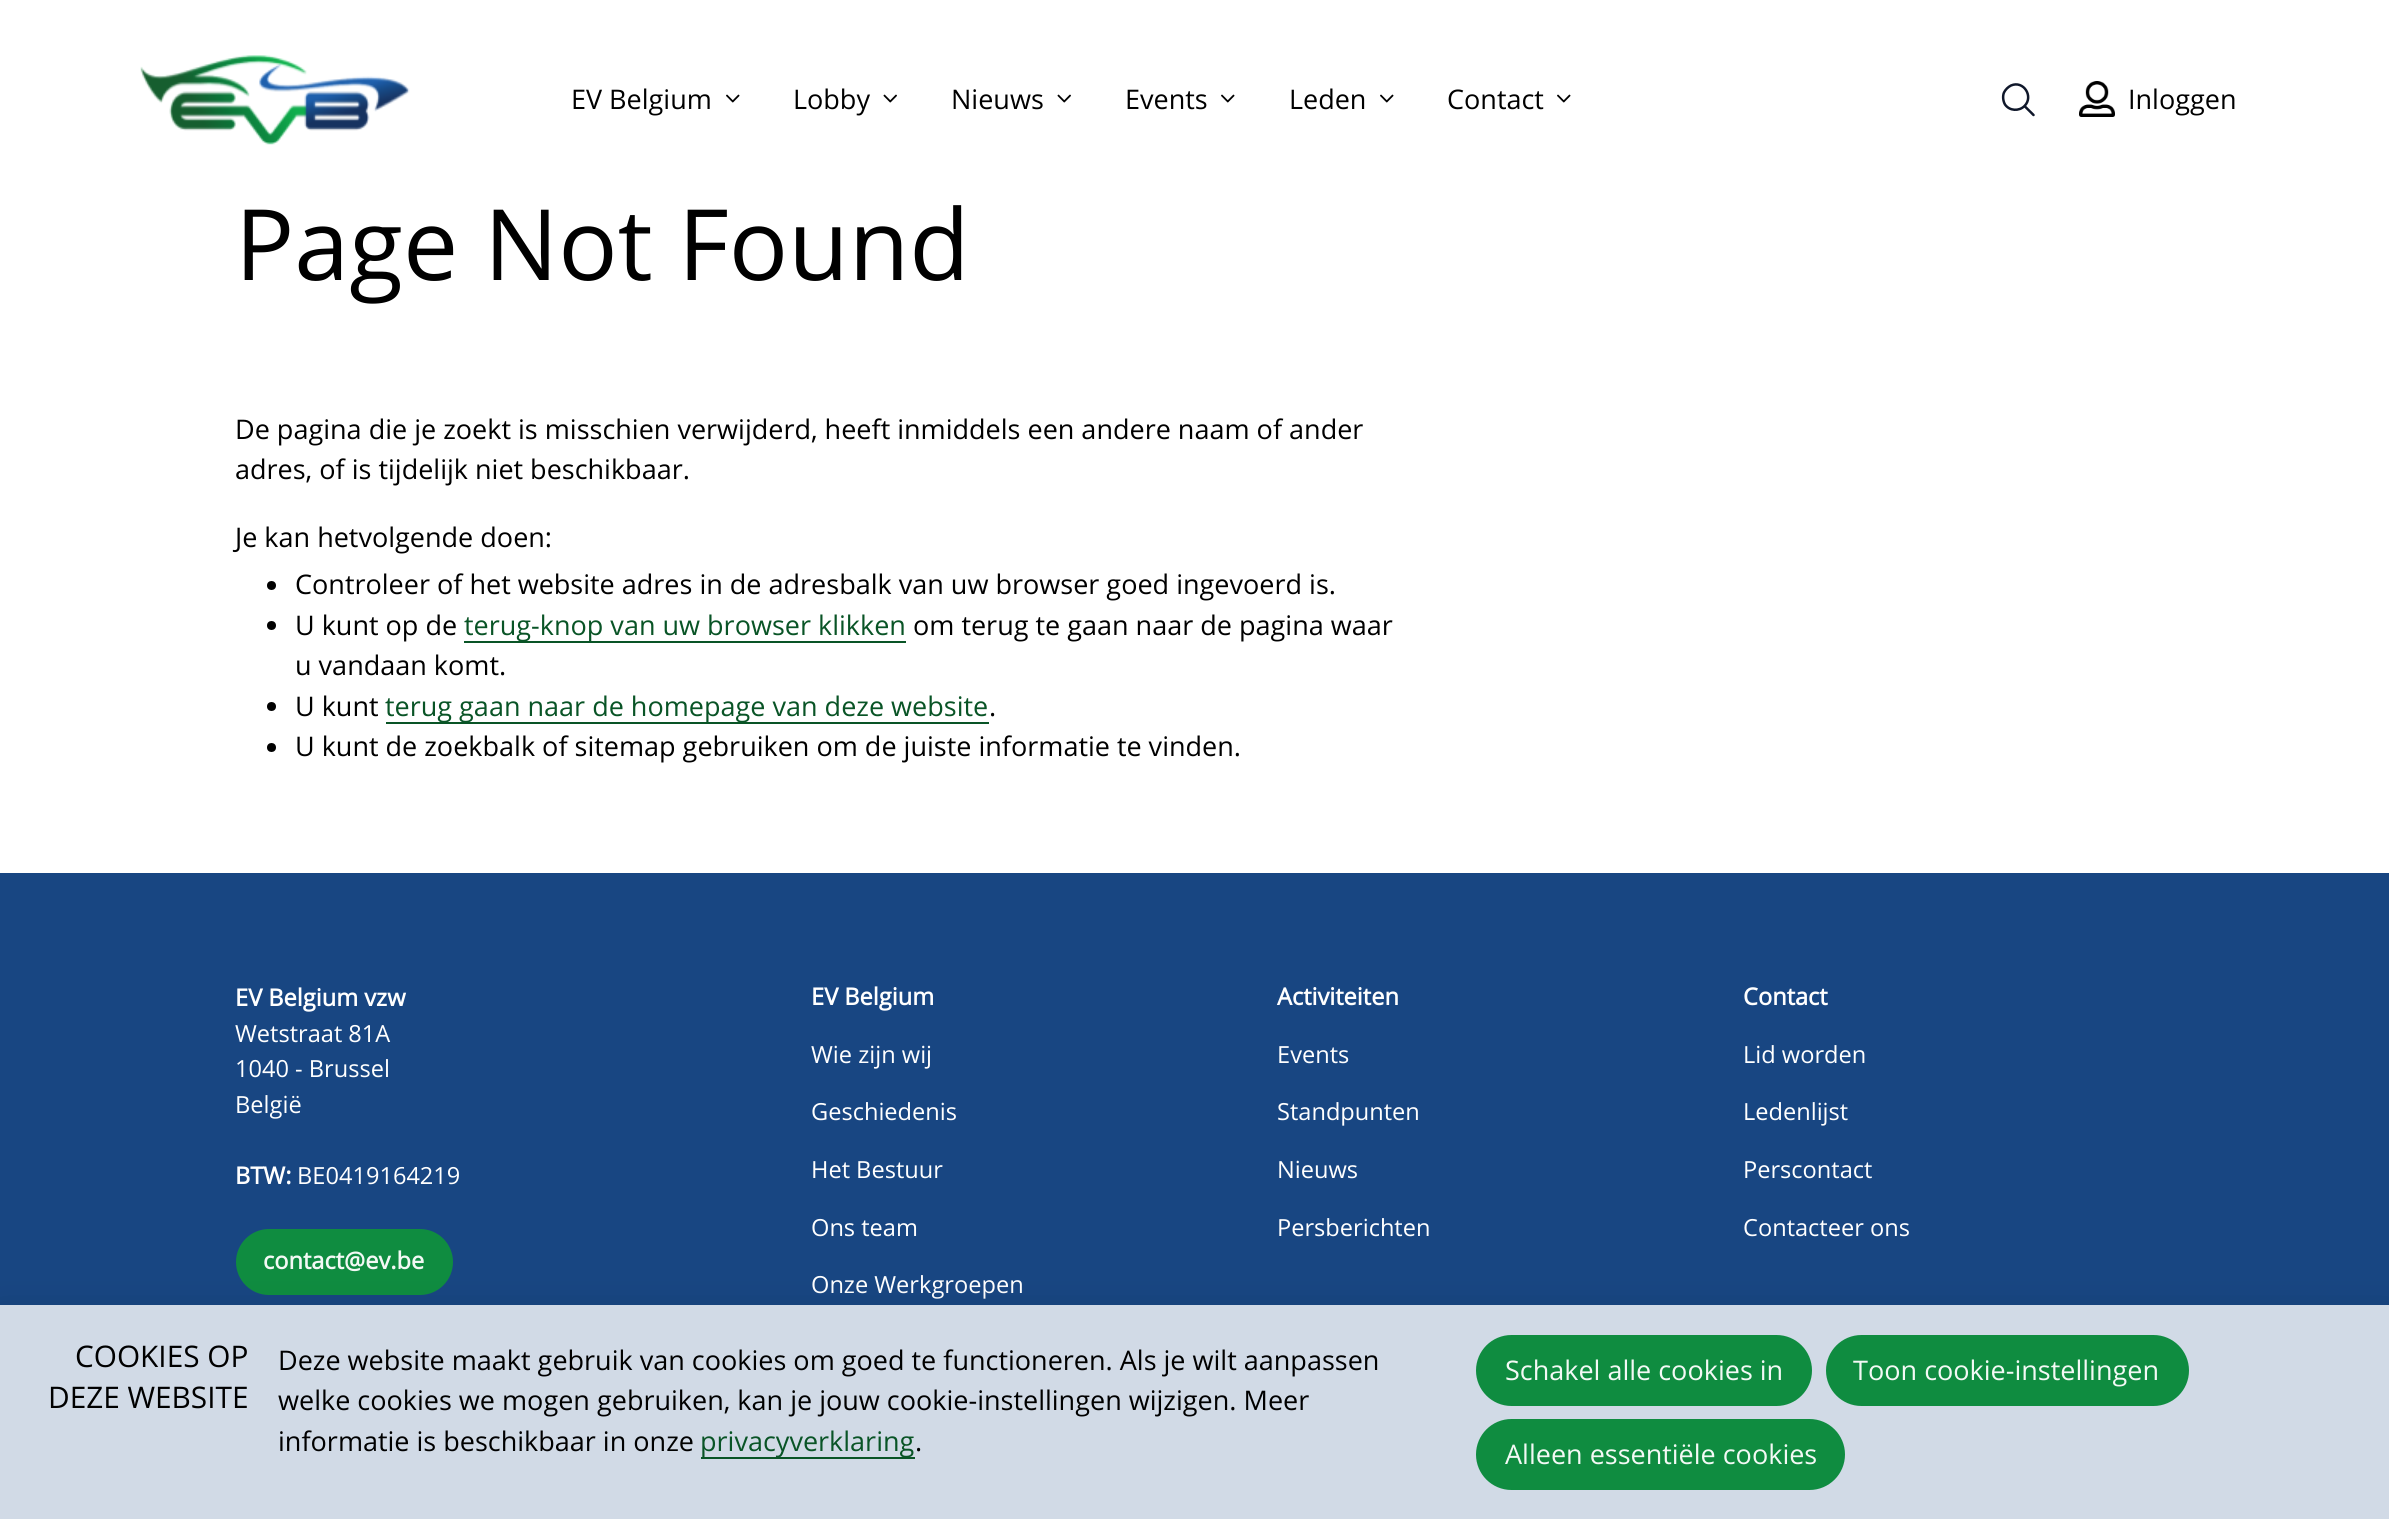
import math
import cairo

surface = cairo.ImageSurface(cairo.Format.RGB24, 2389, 1519)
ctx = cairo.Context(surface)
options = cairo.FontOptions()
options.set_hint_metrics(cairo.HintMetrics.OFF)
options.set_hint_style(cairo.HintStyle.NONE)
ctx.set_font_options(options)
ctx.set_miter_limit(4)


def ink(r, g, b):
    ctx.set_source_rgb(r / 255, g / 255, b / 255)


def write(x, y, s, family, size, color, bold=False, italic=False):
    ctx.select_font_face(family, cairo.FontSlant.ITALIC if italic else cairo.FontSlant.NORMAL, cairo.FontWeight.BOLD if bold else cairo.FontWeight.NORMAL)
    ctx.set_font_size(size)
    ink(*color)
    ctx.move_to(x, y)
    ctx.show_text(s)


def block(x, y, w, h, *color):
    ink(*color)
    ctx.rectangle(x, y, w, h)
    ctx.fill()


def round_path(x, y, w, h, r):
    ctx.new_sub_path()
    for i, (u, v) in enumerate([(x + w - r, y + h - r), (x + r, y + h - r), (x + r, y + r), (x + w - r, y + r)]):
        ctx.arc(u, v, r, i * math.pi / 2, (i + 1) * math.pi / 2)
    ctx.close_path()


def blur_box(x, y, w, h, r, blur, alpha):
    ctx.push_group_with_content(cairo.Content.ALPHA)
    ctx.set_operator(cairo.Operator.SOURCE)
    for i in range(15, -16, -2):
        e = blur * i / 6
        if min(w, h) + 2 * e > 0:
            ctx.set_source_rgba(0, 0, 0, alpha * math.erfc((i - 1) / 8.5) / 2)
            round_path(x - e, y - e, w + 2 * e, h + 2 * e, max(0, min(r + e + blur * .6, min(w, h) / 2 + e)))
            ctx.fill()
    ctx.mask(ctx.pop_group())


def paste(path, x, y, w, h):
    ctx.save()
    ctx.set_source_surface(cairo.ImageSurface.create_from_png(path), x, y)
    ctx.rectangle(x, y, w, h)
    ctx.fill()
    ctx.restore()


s1 = dict(family="Open Sans", size=27, color=(0, 0, 0))
s2 = dict(family="Open Sans", size=98.5, color=(0, 0, 0))
s3 = dict(family="Open Sans", size=27, color=(9, 84, 38))
s4 = dict(family="Open Sans", size=23.6, color=(255, 255, 255), bold=True)
s5 = dict(family="Open Sans", size=23.6, color=(255, 255, 255))
s6 = dict(family="Open Sans", size=23.6, color=(243, 249, 245), bold=True)
s7 = dict(family="Open Sans", size=29.75, color=(0, 0, 0))
s8 = dict(family="Open Sans", size=27, color=(243, 249, 245))

ink(255, 255, 255)
ctx.paint()
paste("pic1.png", 140, 55, 270, 90)
write(571, 109, "EV Belgium", **s1)
paste("pic2.png", 726, 94, 14, 9)
write(793, 109, "Lobby", **s1)
paste("pic3.png", 883, 94, 14, 9)
write(951, 109, "Nieuws", **s1)
paste("pic3.png", 1057, 94, 14, 9)
write(1125, 109, "Events", **s1)
paste("pic2.png", 1221, 94, 14, 9)
write(1289, 109, "Leden", **s1)
paste("pic2.png", 1380, 94, 14, 9)
write(1447, 109, "Contact", **s1)
paste("pic2.png", 1557, 94, 14, 9)
ctx.new_path()
ctx.move_to(2033.5, 115)
ctx.line_to(2024.5, 106)
ctx.move_to(2024.5, 106)
ctx.curve_to(2034, 96.5, 2023.5, 80, 2011, 85.5)
ctx.curve_to(2008, 87, 2005.5, 89.5, 2004, 92.5)
ctx.curve_to(2002.5, 96, 2003, 101, 2005, 104.5)
ctx.curve_to(2009.5, 111, 2019, 111.5, 2024.5, 106)
ctx.close_path()
ink(15, 23, 42)
ctx.set_line_width(2.5)
ctx.set_line_cap(cairo.LineCap.ROUND)
ctx.set_line_join(cairo.LineJoin.ROUND)
ctx.stroke()
paste("pic4.png", 2079, 81, 36, 36)
write(2128, 109, "Inloggen", **s1)
write(235, 280, "Page Not Found", **s2)
write(235, 439, "De pagina die je zoekt is misschien verwijderd, heeft inmiddels een andere naam of ander", **s1)
write(235, 479, "adres, of is tijdelijk niet beschikbaar.", **s1)
write(235, 547, "Je kan hetvolgende doen:", **s1)
ctx.new_path()
ctx.arc(271.5, 585.5, 4.5, 0, 2 * math.pi)
ctx.fill()
write(295, 594, "Controleer of het website adres in de adresbalk van uw browser goed ingevoerd is.", **s1)
ctx.new_path()
ctx.arc(271.5, 625.5, 4.5, 0, 2 * math.pi)
ctx.fill()
write(295, 635, "U kunt op de", **s1)
block(464, 641, 442, 2, 9, 84, 38)
write(464, 635, "terug-knop van uw browser klikken", **s3)
write(913, 635, "om terug te gaan naar de pagina waar", **s1)
write(295, 675, "u vandaan komt.", **s1)
ctx.new_path()
ctx.arc(271.5, 706.5, 4.5, 0, 2 * math.pi)
ctx.fill()
write(295, 716, "U kunt", **s1)
block(386, 722, 603, 2, 9, 84, 38)
write(385, 716, "terug gaan naar de homepage van deze website", **s3)
write(989, 716, ".", **s1)
ctx.new_path()
ctx.arc(271.5, 747.5, 4.5, 0, 2 * math.pi)
ctx.fill()
write(295, 756, "U kunt de zoekbalk of sitemap gebruiken om de juiste informatie te vinden.", **s1)
block(0, 873, 2389, 432, 24, 70, 130)
write(235, 1006, "EV Belgium vzw", **s4)
write(235, 1042, "Wetstraat 81A", **s5)
write(235, 1077, "1040 - Brussel", **s5)
write(235, 1113, "België", **s5)
write(235, 1184, "BTW:", **s4)
write(297, 1184, "BE0419164219", **s5)
ink(15, 140, 64)
round_path(237, 1230, 215, 64, 32)
ctx.fill_preserve()
ctx.set_line_width(2)
ctx.set_line_cap(cairo.LineCap.BUTT)
ctx.set_line_join(cairo.LineJoin.MITER)
ctx.stroke()
write(263, 1269, "contact@ev.be", **s6)
write(811, 1005, "EV Belgium", **s4)
write(811, 1063, "Wie zijn wij", **s5)
write(811, 1120, "Geschiedenis", **s5)
write(811, 1178, "Het Bestuur", **s5)
write(811, 1236, "Ons team", **s5)
write(811, 1293, "Onze Werkgroepen", **s5)
write(1277, 1005, "Activiteiten", **s4)
write(1277, 1063, "Events", **s5)
write(1277, 1120, "Standpunten", **s5)
write(1277, 1178, "Nieuws", **s5)
write(1277, 1236, "Persberichten", **s5)
write(1743, 1005, "Contact", **s4)
write(1743, 1063, "Lid worden", **s5)
write(1743, 1120, "Ledenlijst", **s5)
write(1743, 1178, "Perscontact", **s5)
write(1743, 1236, "Contacteer ons", **s5)
ink(0, 0, 0)
blur_box(0, 1313, 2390, 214, 0, 15, 0.2)
block(0, 1305, 2389, 214, 209, 218, 230)
write(75, 1367, "COOKIES OP", **s7)
write(48, 1408, "DEZE WEBSITE", **s7)
write(278, 1370, "Deze website maakt gebruik van cookies om goed te functioneren. Als je wilt aanpassen", **s1)
write(278, 1410, "welke cookies we mogen gebruiken, kan je jouw cookie-instellingen wijzigen. Meer", **s1)
write(278, 1451, "informatie is beschikbaar in onze", **s1)
block(701, 1457, 214, 2, 9, 84, 38)
write(700, 1451, "privacyverklaring", **s3)
write(915, 1451, ".", **s1)
ink(15, 140, 64)
round_path(1477, 1336, 334, 69, 34.5)
ctx.fill_preserve()
ctx.stroke()
write(1505, 1380, "Schakel alle cookies in", **s8)
ink(15, 140, 64)
round_path(1827, 1336, 361, 69, 34.5)
ctx.fill_preserve()
ctx.stroke()
write(1853, 1380, "Toon cookie-instellingen", **s8)
ink(15, 140, 64)
round_path(1477, 1420, 367, 69, 34.5)
ctx.fill_preserve()
ctx.stroke()
write(1505, 1464, "Alleen essentiële cookies", **s8)
surface.write_to_png("screenshot.png")
